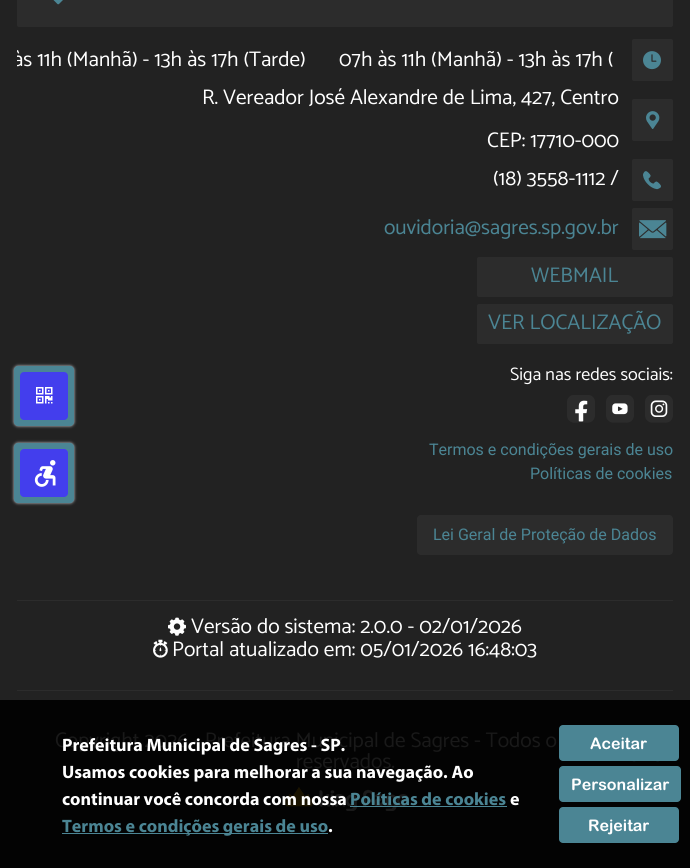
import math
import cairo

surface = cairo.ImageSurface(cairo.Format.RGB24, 690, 868)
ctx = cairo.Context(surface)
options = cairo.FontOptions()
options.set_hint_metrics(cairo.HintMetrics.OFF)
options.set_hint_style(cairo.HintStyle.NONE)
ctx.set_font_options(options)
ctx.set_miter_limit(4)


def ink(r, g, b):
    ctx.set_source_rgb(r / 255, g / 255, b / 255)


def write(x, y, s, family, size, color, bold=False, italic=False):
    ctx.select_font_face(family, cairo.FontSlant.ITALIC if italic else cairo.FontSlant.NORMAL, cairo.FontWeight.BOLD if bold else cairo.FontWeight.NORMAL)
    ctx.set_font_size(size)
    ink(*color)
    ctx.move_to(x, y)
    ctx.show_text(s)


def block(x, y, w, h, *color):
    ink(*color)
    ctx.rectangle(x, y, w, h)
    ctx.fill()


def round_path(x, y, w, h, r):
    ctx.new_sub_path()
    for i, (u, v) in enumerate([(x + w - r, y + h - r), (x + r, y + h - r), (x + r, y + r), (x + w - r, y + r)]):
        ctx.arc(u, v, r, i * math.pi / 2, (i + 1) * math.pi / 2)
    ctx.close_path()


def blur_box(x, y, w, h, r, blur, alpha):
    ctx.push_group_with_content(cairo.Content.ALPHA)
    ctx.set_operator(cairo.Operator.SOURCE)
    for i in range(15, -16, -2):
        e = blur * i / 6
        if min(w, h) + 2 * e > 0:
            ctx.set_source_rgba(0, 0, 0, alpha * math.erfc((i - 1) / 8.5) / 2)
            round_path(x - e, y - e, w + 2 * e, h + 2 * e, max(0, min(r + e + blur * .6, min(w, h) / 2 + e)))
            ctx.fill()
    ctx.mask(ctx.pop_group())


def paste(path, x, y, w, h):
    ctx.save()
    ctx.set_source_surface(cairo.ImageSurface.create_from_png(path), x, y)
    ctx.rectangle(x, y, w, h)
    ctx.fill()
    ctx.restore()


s1 = dict(family="Catamaran", size=21.2, color=(255, 255, 255))
s2 = dict(family="Catamaran", size=21.2, color=(75, 133, 148))
s3 = dict(family="Catamaran", size=18, color=(255, 255, 255))
s4 = dict(family="Roboto", size=16, color=(75, 133, 148))
s5 = dict(family="Catamaran", size=21.2, color=(25, 25, 25))
s6 = dict(family="Myriad", size=18, color=(255, 255, 255), bold=True)
s7 = dict(family="Myriad", size=18, color=(75, 133, 148), bold=True)
s8 = dict(family="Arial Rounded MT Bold", size=16, color=(255, 255, 255), bold=True)

ink(34, 34, 34)
ctx.paint()
block(0, 700, 690, 168, 3, 3, 3)
ink(44, 44, 44)
round_path(17, -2, 656, 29, 2)
ctx.fill()
paste("pic1.png", 53, 0, 10, 5)
ctx.save()
ctx.rectangle(17, 39, 601, 42)
ctx.clip()
write(13, 66, "às 11h (Manhã) - 13h às 17h (Tarde)", **s1)
ctx.restore()
write(339, 66, "07h às 11h (Manhã) - 13h às 17h (", **s1)
ink(44, 44, 44)
round_path(632, 39, 41, 42, 2)
ctx.fill()
paste("pic2.png", 643, 51, 18, 19)
write(202, 104, "R. Vereador José Alexandre de Lima, 427, Centro", **s1)
write(487, 147, "CEP: 17710-000", **s1)
ink(44, 44, 44)
round_path(632, 99, 41, 42, 2)
ctx.fill()
paste("pic3.png", 646, 111, 14, 18)
write(493, 185, "(18) 3558-1112 /", **s1)
ink(44, 44, 44)
round_path(632, 159, 41, 42, 2)
ctx.fill()
paste("pic4.png", 643, 171, 18, 19)
write(384, 234, "ouvidoria@sagres.sp.gov.br", **s2)
ink(44, 44, 44)
round_path(632, 208, 41, 42, 2)
ctx.fill()
paste("pic5.png", 639, 220, 28, 19)
round_path(477, 257, 196, 40, 2)
ctx.fill()
write(531, 282, "WEBMAIL", **s2)
ink(44, 44, 44)
round_path(477, 304, 196, 40, 2)
ctx.fill()
write(488, 329, "VER LOCALIZAÇÃO", **s2)
write(510, 380, "Siga nas redes sociais:", **s3)
gradient = cairo.RadialGradient(581, 409, 0, 581, 409, 20)
gradient.add_color_stop_rgba(0.6, 1, 1, 1, 1)
gradient.add_color_stop_rgba(0.65, 0.133, 0.133, 0.133, 1)
ctx.set_source(gradient)
round_path(567, 395, 28, 28, 4)
ctx.fill()
paste("pic6.png", 567, 395, 28, 28)
gradient = cairo.RadialGradient(620, 409, 0, 620, 409, 20)
gradient.add_color_stop_rgba(0.6, 1, 1, 1, 1)
gradient.add_color_stop_rgba(0.65, 0.133, 0.133, 0.133, 1)
ctx.set_source(gradient)
round_path(606, 395, 28, 28, 4)
ctx.fill()
paste("pic7.png", 606, 395, 28, 28)
gradient = cairo.RadialGradient(659, 409, 0, 659, 409, 20)
gradient.add_color_stop_rgba(0.6, 1, 1, 1, 1)
gradient.add_color_stop_rgba(0.65, 0.133, 0.133, 0.133, 1)
ctx.set_source(gradient)
round_path(645, 395, 28, 28, 4)
ctx.fill()
paste("pic8.png", 645, 395, 28, 28)
write(429, 455, "Termos e condições gerais de uso", **s4)
write(530, 479, "Políticas de cookies", **s4)
ink(44, 44, 44)
round_path(417, 515, 256, 40, 4)
ctx.fill()
write(433, 540, "Lei Geral de Proteção de Dados", **s4)
block(17, 600, 656, 1, 44, 44, 44)
paste("pic9.png", 168, 617, 18, 19)
write(191, 633, "Versão do sistema: 2.0.0 - 02/01/2026", **s1)
paste("pic10.png", 153, 639, 15, 19)
write(172, 656, "Portal atualizado em: 05/01/2026 16:48:03", **s1)
block(17, 690, 656, 1, 44, 44, 44)
write(55, 747, "Copyright 2026 - Prefeitura Municipal de Sagres - Todos o", **s5)
write(296, 768, "reservados.", **s5)
paste("pic11.png", 283, 787, 125, 24)
paste("pic12.png", 632, 761, 28, 1)
write(62, 751, "Prefeitura Municipal de Sagres - SP.", **s6)
write(62, 778, "Usamos cookies para melhorar a sua navegação. Ao", **s6)
write(62, 805, "continuar você concorda com nossa", **s6)
write(350, 805, "Políticas de cookies", **s7)
block(350, 806, 157, 1, 75, 133, 148)
write(510, 805, "e", **s6)
block(62, 833, 266, 1, 75, 133, 148)
write(62, 832, "Termos e condições gerais de uso", **s7)
write(328, 832, ".", **s6)
ink(75, 133, 148)
round_path(559, 725, 120, 36, 4)
ctx.fill()
write(590, 749, "Aceitar", **s8)
ink(75, 133, 148)
round_path(559, 766, 122, 36, 4)
ctx.fill()
write(571, 790, "Personalizar", **s8)
ink(75, 133, 148)
round_path(559, 807, 120, 36, 4)
ctx.fill()
write(588, 831, "Rejeitar", **s8)
ink(203, 208, 214)
blur_box(14, 366, 60, 60, 4, 1.5, 1)
ink(75, 133, 148)
round_path(14, 366, 60, 60, 4)
ctx.fill()
ink(67, 62, 237)
round_path(20, 372, 48, 48, 4)
ctx.fill()
paste("pic13.png", 36, 387, 17, 17)
ink(203, 208, 214)
blur_box(14, 443, 60, 60, 4, 1.5, 1)
ink(75, 133, 148)
round_path(14, 443, 60, 60, 4)
ctx.fill()
ink(67, 62, 237)
round_path(20, 449, 48, 48, 4)
ctx.fill()
paste("pic14.png", 34, 460, 22, 27)
surface.write_to_png("screenshot.png")
